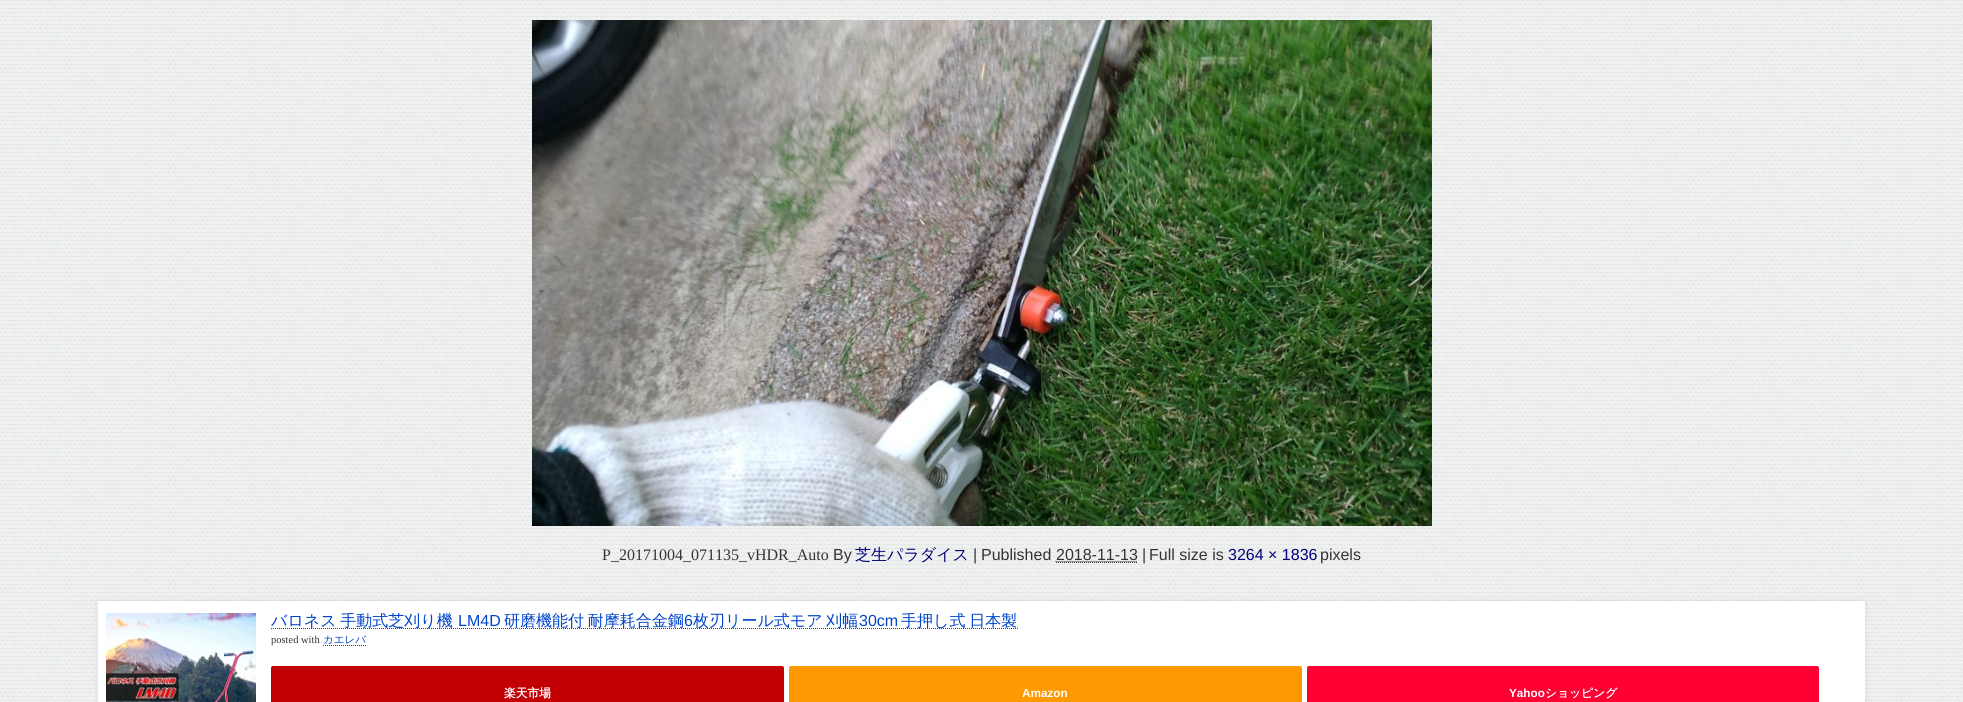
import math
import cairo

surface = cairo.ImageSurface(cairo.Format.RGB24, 1963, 702)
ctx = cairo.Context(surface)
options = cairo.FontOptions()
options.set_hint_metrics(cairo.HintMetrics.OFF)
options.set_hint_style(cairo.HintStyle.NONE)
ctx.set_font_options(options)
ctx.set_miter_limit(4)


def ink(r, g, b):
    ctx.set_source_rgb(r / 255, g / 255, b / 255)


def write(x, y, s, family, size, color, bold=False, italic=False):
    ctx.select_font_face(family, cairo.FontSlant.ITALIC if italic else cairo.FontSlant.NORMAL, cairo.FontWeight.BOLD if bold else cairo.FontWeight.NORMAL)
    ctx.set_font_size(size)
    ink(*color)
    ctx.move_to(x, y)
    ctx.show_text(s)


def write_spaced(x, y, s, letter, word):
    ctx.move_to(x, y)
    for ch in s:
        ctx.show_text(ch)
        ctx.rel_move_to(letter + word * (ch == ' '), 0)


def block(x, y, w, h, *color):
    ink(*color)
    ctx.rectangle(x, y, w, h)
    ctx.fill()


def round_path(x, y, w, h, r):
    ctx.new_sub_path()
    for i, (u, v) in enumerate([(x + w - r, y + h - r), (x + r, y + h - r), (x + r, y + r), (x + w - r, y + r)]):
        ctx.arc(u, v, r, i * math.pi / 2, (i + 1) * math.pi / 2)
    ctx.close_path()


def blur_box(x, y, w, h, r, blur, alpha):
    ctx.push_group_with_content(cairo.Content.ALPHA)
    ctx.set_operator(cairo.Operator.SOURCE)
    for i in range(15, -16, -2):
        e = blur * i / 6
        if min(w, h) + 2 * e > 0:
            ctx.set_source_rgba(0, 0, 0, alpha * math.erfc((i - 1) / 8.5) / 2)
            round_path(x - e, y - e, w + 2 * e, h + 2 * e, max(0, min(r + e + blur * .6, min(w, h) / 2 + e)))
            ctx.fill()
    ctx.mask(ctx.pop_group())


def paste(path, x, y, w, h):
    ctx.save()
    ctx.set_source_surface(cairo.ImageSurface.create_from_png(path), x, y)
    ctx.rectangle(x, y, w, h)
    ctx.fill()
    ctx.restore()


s1 = dict(family="Liberation Serif", size=16, color=(51, 51, 51))
s2 = dict(family="Liberation Sans", size=16, color=(51, 51, 51))
s3 = dict(family="WenQuanYi Zen Hei Medium", size=16, color=(2, 0, 122))
s4 = dict(family="Liberation Sans", size=16, color=(2, 0, 122))
s5 = dict(family="Liberation Sans", size=16, color=(0, 68, 204))
s6 = dict(family="Liberation Serif", size=10.5, color=(51, 51, 51))
s7 = dict(family="WenQuanYi Zen Hei Medium", size=10.5, color=(0, 68, 204))
s8 = dict(family="WenQuanYi Zen Hei", size=11.75, color=(255, 255, 255), bold=True)
s9 = dict(family="Liberation Sans", size=11.75, color=(255, 255, 255), bold=True)

ink(255, 255, 255)
ctx.paint()
paste("pic1.png", 0, 0, 1963, 702)
paste("pic2.png", 532, 20, 900, 506)
write(602, 560, "P_20171004_071135_vHDR_Auto", **s1)
write(833, 560, "By", **s2)
write(855, 560, "芝生パラダイス", **s3)
write(973, 560, "|", **s2)
write(981, 560, "Published", **s2)
write(1056, 560, "2018-11-13", **s2)
ctx.new_path()
ctx.move_to(1056, 562.5)
ctx.line_to(1138, 562.5)
ctx.set_line_width(1)
ctx.set_dash([1, 1])
ctx.stroke()
ctx.new_path()
ctx.move_to(1055.5, 561.5)
ctx.line_to(1137.5, 561.5)
ctx.stroke()
write(1142, 560, "|", **s2)
write(1149, 560, "Full size is", **s2)
write(1228, 560, "3264 × 1836", **s4)
write(1320, 560, "pixels", **s2)
ink(0, 0, 0)
blur_box(98, 601, 1767, 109, 0, 2.5, 0.1)
block(98, 601, 1767, 101, 255, 255, 255)
paste("pic3.png", 106, 613, 150, 89)
ctx.new_path()
ctx.move_to(271, 628.5)
ctx.line_to(1018, 628.5)
ink(0, 68, 204)
ctx.stroke()
ctx.save()
ctx.rectangle(271, 613, 1586, 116)
ctx.clip()
ctx.select_font_face("WenQuanYi Zen Hei Medium")
write_spaced(271, 626, "バロネス 手動式芝刈り機", 0, -1)
ctx.restore()
write(458, 626, "LM4D", **s5)
ctx.select_font_face("WenQuanYi Zen Hei Medium")
write_spaced(504, 626, "研磨機能付 耐摩耗合金鋼", 0, -1)
write(684, 626, "6", **s5)
ctx.select_font_face("WenQuanYi Zen Hei Medium")
write_spaced(693, 626, "枚刃リール式モア 刈幅", 0, -1)
write(859, 626, "30cm", **s5)
ctx.save()
ctx.rectangle(271, 613, 1586, 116)
ctx.clip()
ctx.select_font_face("WenQuanYi Zen Hei Medium")
write_spaced(901, 626, "手押し式 日本製", 0, -1)
ctx.restore()
write(271, 643, "posted with", **s6)
write(323, 643, "カエレバ", **s7)
ctx.new_path()
ctx.move_to(323, 645.5)
ctx.line_to(367, 645.5)
ctx.stroke()
ink(194, 0, 4)
round_path(271, 666, 513, 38, 2)
ctx.fill()
write(504, 697, "楽天市場", **s8)
ink(255, 153, 1)
round_path(789, 666, 513, 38, 2)
ctx.fill()
write(1022, 697, "Amazon", **s9)
ink(255, 0, 51)
round_path(1307, 666, 512, 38, 2)
ctx.fill()
write(1509, 697, "Yahoo", **s9)
write(1545, 697, "ショッピング", **s8)
surface.write_to_png("screenshot.png")
